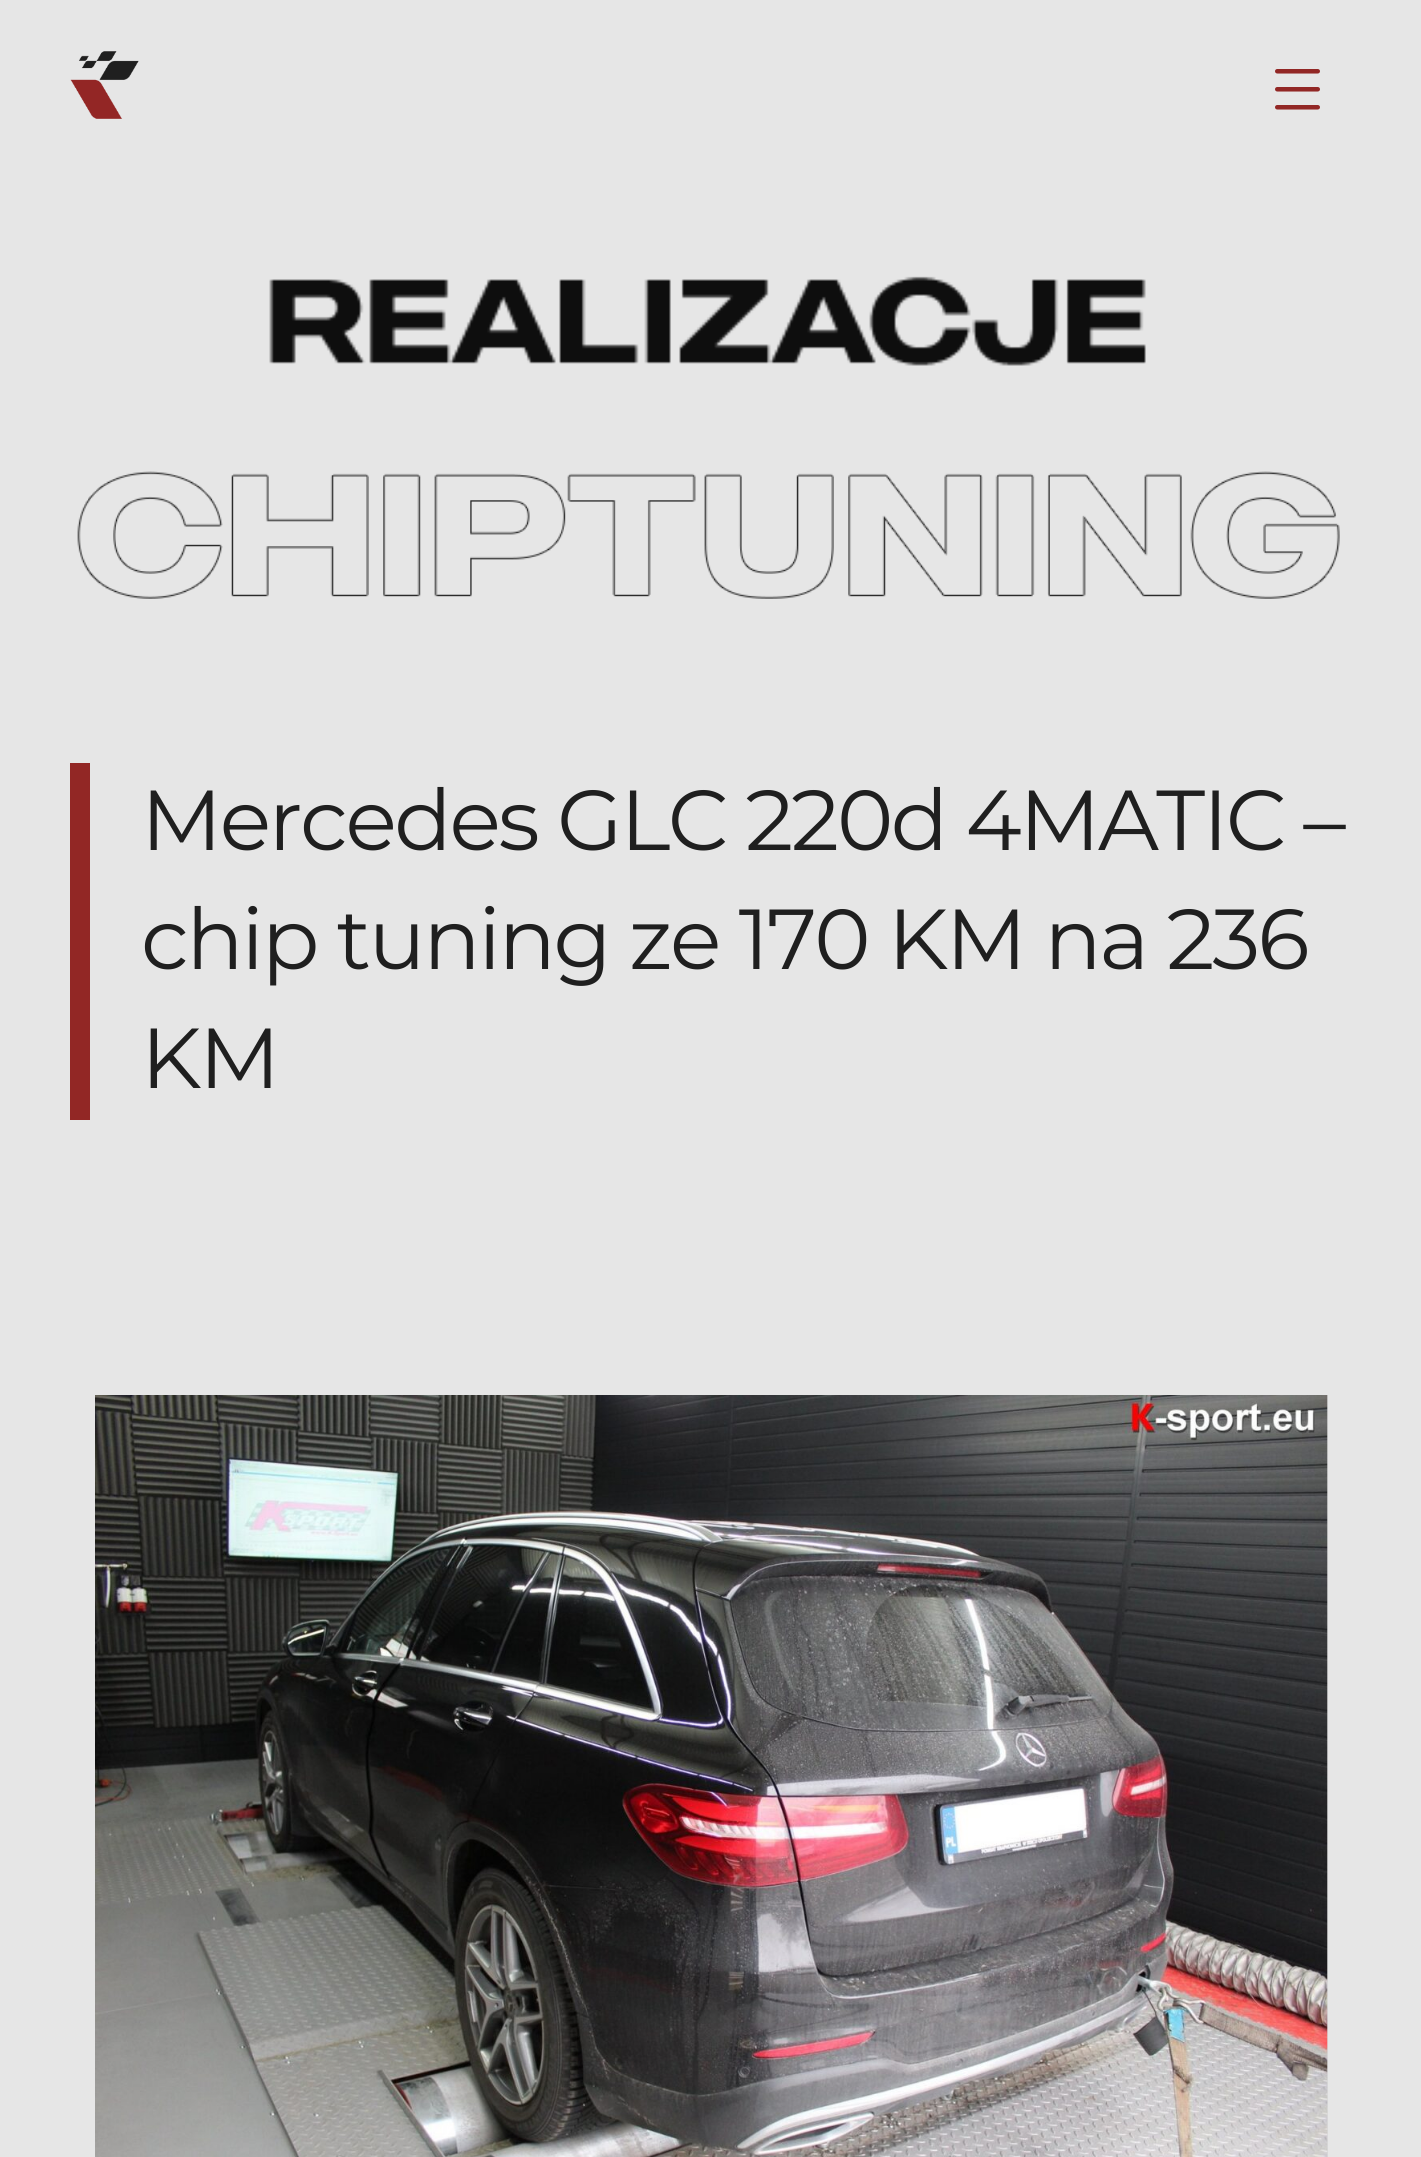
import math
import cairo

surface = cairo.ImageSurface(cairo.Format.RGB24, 1421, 2157)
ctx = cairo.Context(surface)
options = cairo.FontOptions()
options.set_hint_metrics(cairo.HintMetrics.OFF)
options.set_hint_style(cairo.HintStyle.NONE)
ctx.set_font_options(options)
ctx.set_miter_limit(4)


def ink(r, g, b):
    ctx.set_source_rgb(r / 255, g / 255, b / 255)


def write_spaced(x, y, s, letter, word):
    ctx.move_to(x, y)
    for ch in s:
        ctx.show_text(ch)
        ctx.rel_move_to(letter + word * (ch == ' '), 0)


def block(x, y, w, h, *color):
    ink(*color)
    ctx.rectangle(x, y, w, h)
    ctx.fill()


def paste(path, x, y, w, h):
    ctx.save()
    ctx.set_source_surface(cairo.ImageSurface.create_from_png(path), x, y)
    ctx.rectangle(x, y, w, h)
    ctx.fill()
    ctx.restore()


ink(230, 230, 230)
ctx.paint()
paste("pic1.png", 70, 51, 69, 68)
paste("pic2.png", 1275, 69, 45, 41)
paste("pic3.png", 269, 276, 877, 90)
paste("pic4.png", 77, 471, 1263, 128)
block(70, 763, 20, 357, 146, 39, 37)
ctx.select_font_face("Montserrat")
ctx.set_font_size(85)
ink(31, 31, 31)
write_spaced(141, 850, "Mercedes GLC 220d 4MATIC –", -2.5, 0)
write_spaced(141, 969, "chip tuning ze 170 KM na 236", -2.5, 0)
write_spaced(141, 1088, "KM", -2.5, 0)
block(1327, 1395, 1, 762, 216, 216, 216)
paste("pic5.png", 95, 1395, 1233, 762)
surface.write_to_png("screenshot.png")
